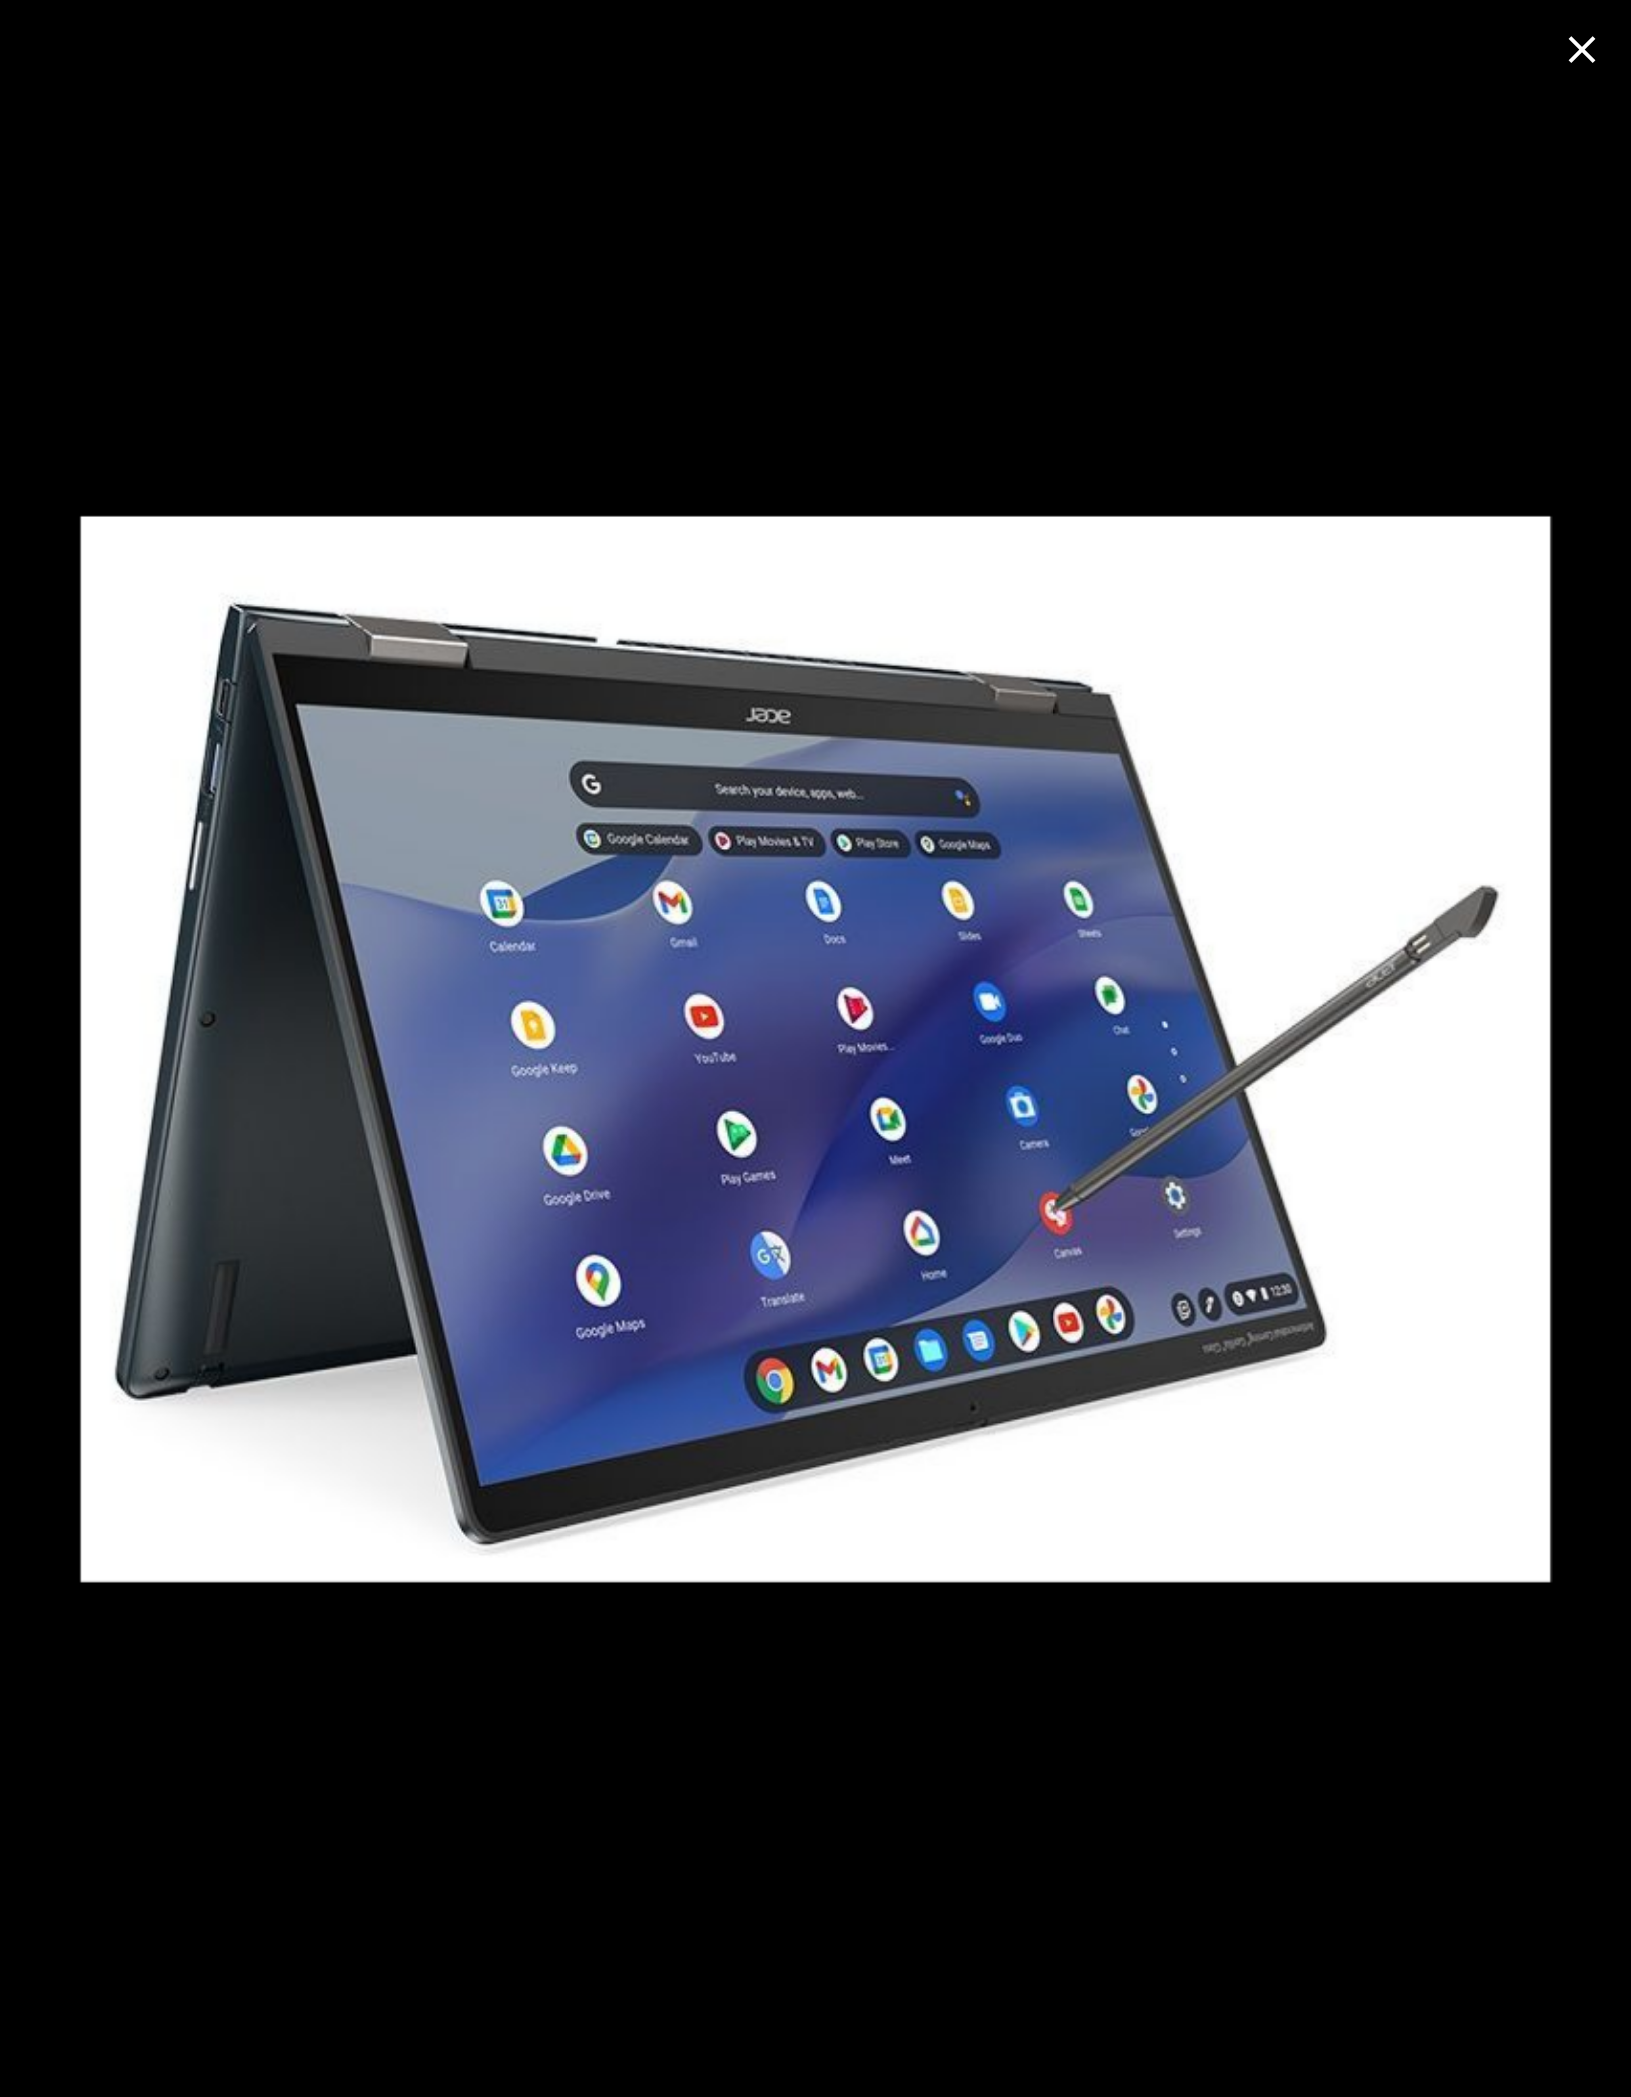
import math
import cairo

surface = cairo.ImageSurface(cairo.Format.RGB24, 1631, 2097)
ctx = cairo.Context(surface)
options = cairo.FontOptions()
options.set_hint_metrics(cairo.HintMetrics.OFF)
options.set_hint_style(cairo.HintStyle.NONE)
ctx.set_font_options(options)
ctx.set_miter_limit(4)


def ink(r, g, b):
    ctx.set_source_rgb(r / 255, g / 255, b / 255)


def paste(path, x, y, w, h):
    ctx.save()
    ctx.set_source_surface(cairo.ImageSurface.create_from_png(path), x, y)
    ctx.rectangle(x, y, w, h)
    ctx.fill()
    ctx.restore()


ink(0, 0, 0)
ctx.paint()
paste("pic1.png", 1568, 36, 28, 27)
paste("pic2.png", 79, 515, 1474, 1068)
surface.write_to_png("screenshot.png")
